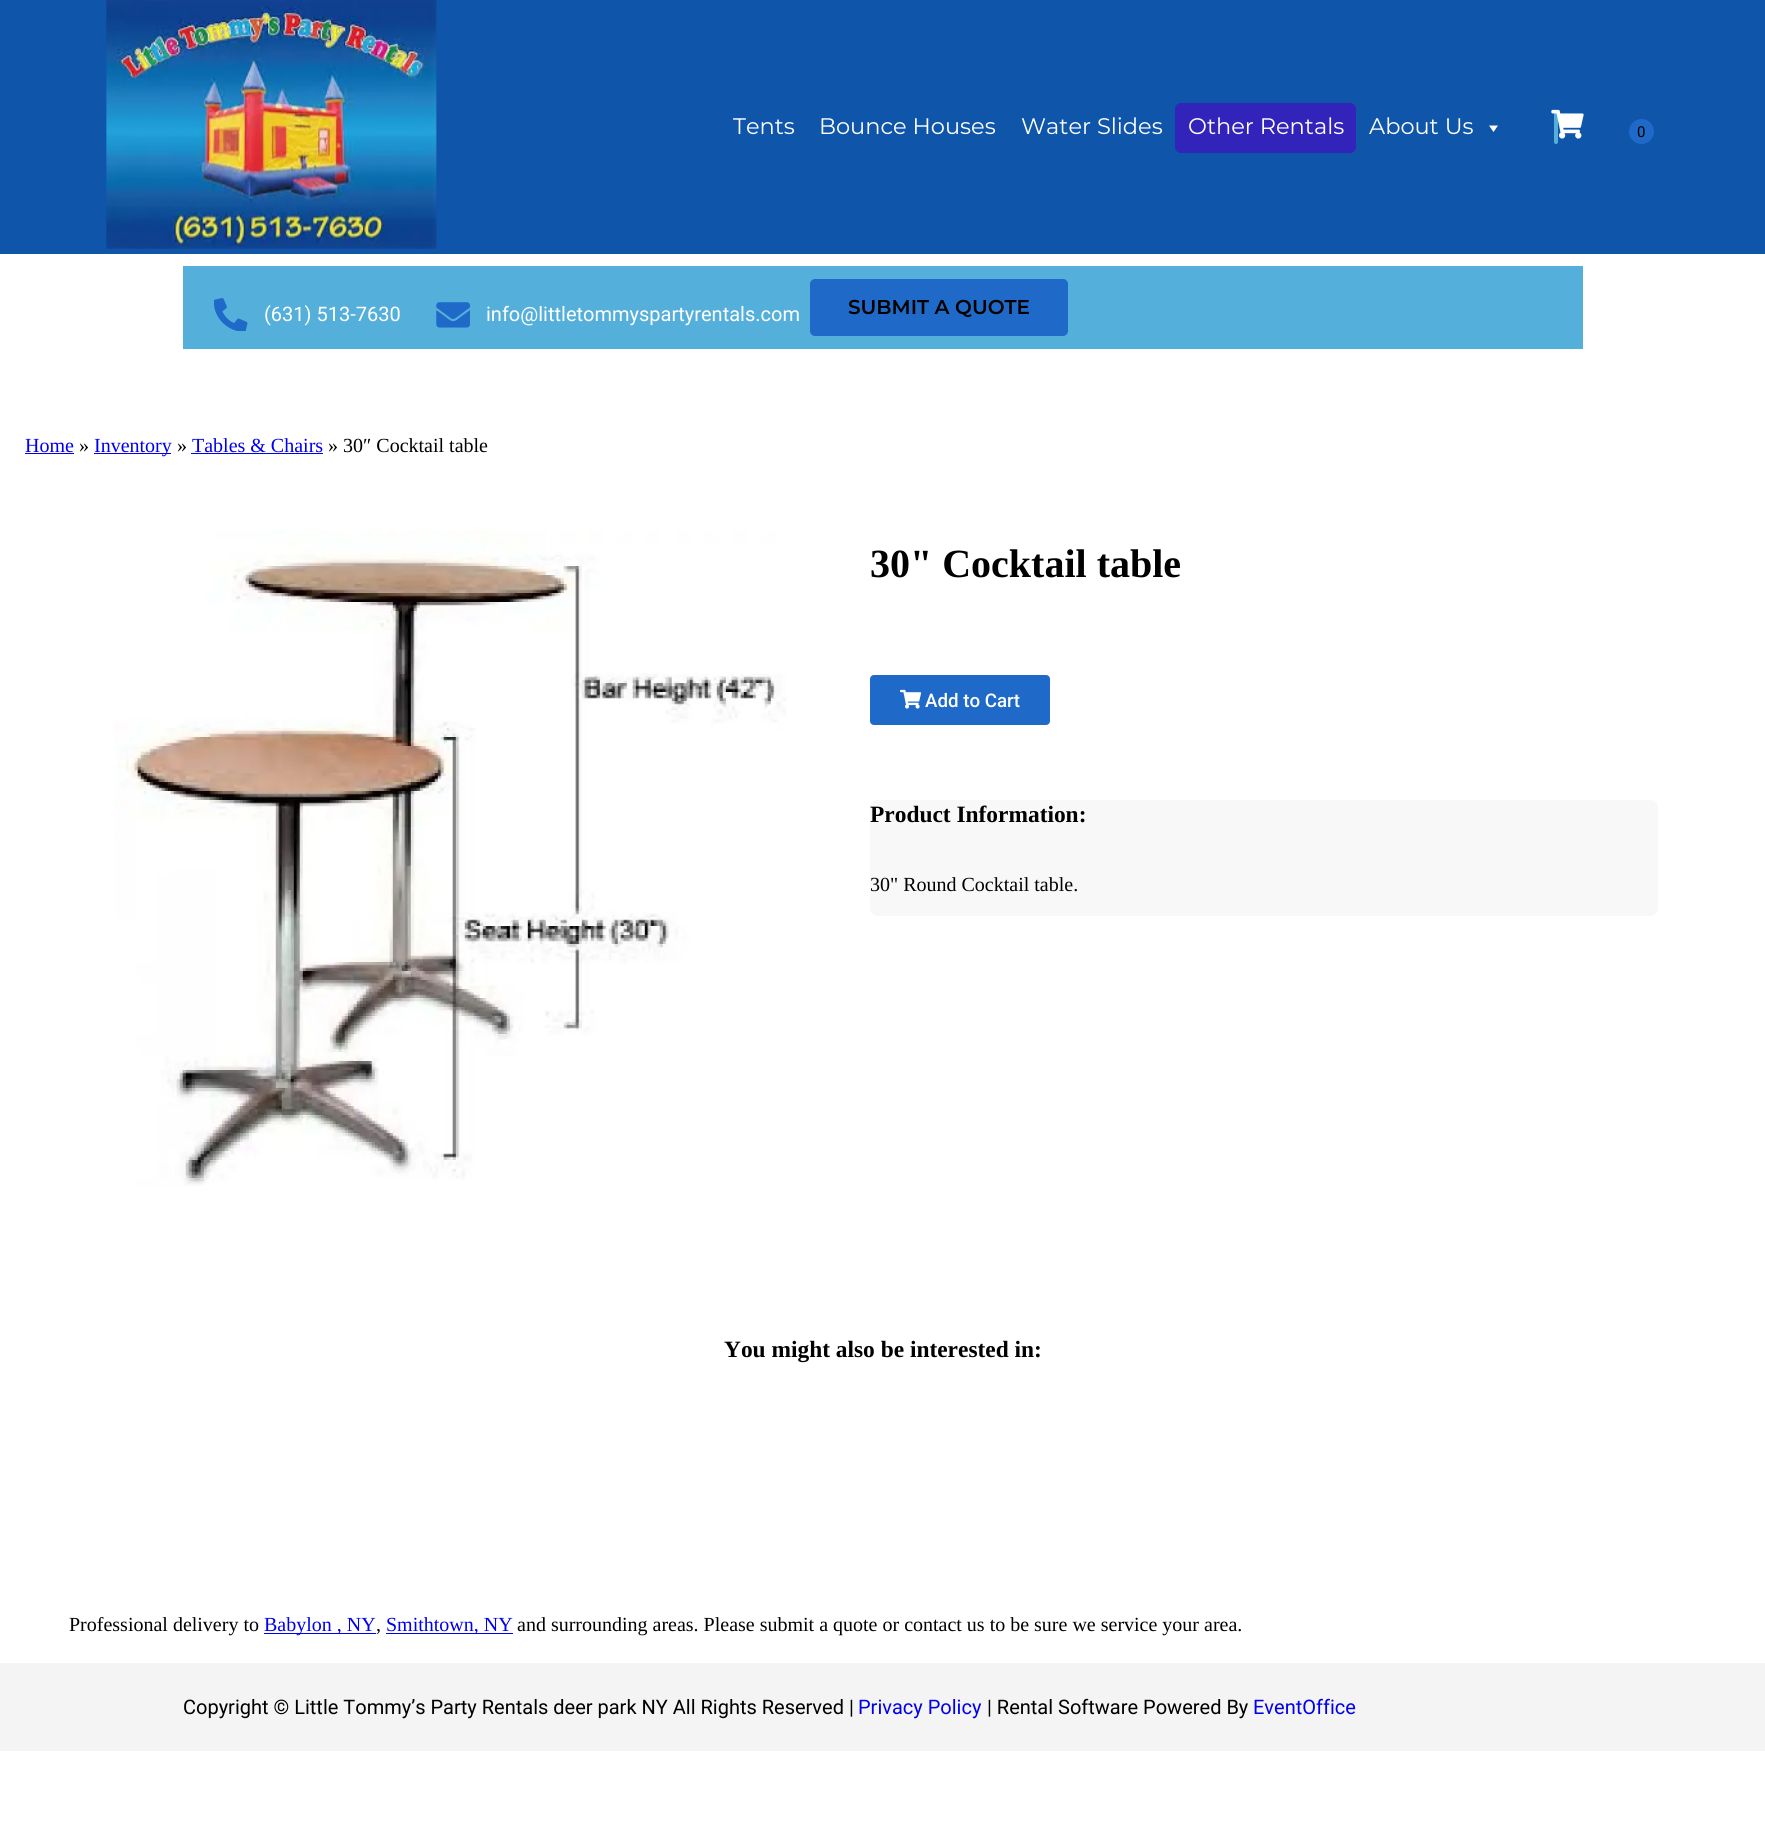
import math
import cairo

surface = cairo.ImageSurface(cairo.Format.RGB24, 1765, 1822)
ctx = cairo.Context(surface)
options = cairo.FontOptions()
options.set_hint_metrics(cairo.HintMetrics.OFF)
options.set_hint_style(cairo.HintStyle.NONE)
ctx.set_font_options(options)
ctx.set_miter_limit(4)


def ink(r, g, b):
    ctx.set_source_rgb(r / 255, g / 255, b / 255)


def write(x, y, s, family, size, color, bold=False, italic=False):
    ctx.select_font_face(family, cairo.FontSlant.ITALIC if italic else cairo.FontSlant.NORMAL, cairo.FontWeight.BOLD if bold else cairo.FontWeight.NORMAL)
    ctx.set_font_size(size)
    ink(*color)
    ctx.move_to(x, y)
    ctx.show_text(s)


def block(x, y, w, h, *color):
    ink(*color)
    ctx.rectangle(x, y, w, h)
    ctx.fill()


def round_path(x, y, w, h, r):
    ctx.new_sub_path()
    for i, (u, v) in enumerate([(x + w - r, y + h - r), (x + r, y + h - r), (x + r, y + r), (x + w - r, y + r)]):
        ctx.arc(u, v, r, i * math.pi / 2, (i + 1) * math.pi / 2)
    ctx.close_path()


def paste(path, x, y, w, h):
    ctx.save()
    ctx.set_source_surface(cairo.ImageSurface.create_from_png(path), x, y)
    ctx.rectangle(x, y, w, h)
    ctx.fill()
    ctx.restore()


s1 = dict(family="Montserrat", size=22.5, color=(255, 255, 255))
s2 = dict(family="Roboto", size=15, color=(0, 0, 0))
s3 = dict(family="Roboto", size=20, color=(255, 255, 255))
s4 = dict(family="Montserrat SemiBold", size=20, color=(0, 0, 0))
s5 = dict(family="Liberation Serif", size=20, color=(0, 0, 238))
s6 = dict(family="Liberation Serif", size=20, color=(0, 0, 0))
s7 = dict(family="Liberation Serif", size=40, color=(0, 0, 0), bold=True)
s8 = dict(family="Roboto Medium", size=18.75, color=(255, 255, 255))
s9 = dict(family="Liberation Serif", size=23.4, color=(0, 0, 0), bold=True)
s10 = dict(family="Roboto", size=20, color=(0, 0, 0))
s11 = dict(family="Roboto", size=20, color=(0, 0, 238))

ink(255, 255, 255)
ctx.paint()
block(0, 0, 1765, 254, 15, 85, 170)
paste("pic1.png", 106, 0, 331, 249)
write(733, 134, "Tents", **s1)
write(819, 134, "Bounce Houses", **s1)
write(1021, 134, "Water Slides", **s1)
ink(50, 36, 186)
round_path(1175, 103, 181, 50, 6)
ctx.fill()
write(1188, 134, "Other Rentals", **s1)
write(1369, 134, "About Us", **s1)
ctx.new_path()
ctx.move_to(1498, 125.5)
ctx.line_to(1493.5, 132)
ctx.line_to(1489, 125.5)
ctx.close_path()
ctx.fill()
ink(84, 176, 219)
round_path(1554, 110, 4, 34, 2)
ctx.fill()
paste("pic2.png", 1551, 109, 33, 30)
ink(31, 106, 201)
ctx.arc(1641.5, 131.5, 12.5, 0, 2 * math.pi)
ctx.fill()
write(1637, 137, "0", **s2)
block(183, 266, 1400, 83, 84, 176, 219)
paste("pic3.png", 214, 298, 34, 33)
write(264, 321, "(631) 513-7630", **s3)
paste("pic4.png", 436, 302, 34, 26)
write(486, 321, "info@littletommyspartyrentals.com", **s3)
ink(31, 106, 201)
round_path(810, 279, 258, 57, 5)
ctx.fill()
write(848, 314, "SUBMIT A QUOTE", **s4)
write(25, 452, "Home", **s5)
block(25, 453, 49, 1, 0, 0, 238)
write(79, 452, "»", **s6)
block(94, 453, 77, 1, 0, 0, 238)
write(94, 452, "Inventory", **s5)
write(177, 452, "»", **s6)
write(192, 452, "Tables & Chairs", **s5)
block(191, 453, 132, 1, 0, 0, 238)
write(328, 452, "» 30″ Cocktail table", **s6)
paste("pic5.png", 114, 530, 673, 656)
write(870, 577, "30\" Cocktail table", **s7)
ink(31, 106, 201)
round_path(870, 675, 180, 50, 4)
ctx.fill()
paste("pic6.png", 900, 689, 22, 20)
write(925, 707, "Add to Cart", **s8)
ink(248, 248, 248)
round_path(870, 800, 788, 116, 8)
ctx.fill()
write(870, 822, "Product Information:", **s9)
write(870, 891, "30\" Round Cocktail table.", **s6)
write(724, 1357, "You might also be interested in:", **s9)
write(69, 1631, "Professional delivery to", **s6)
block(264, 1633, 112, 1, 0, 0, 238)
write(264, 1631, "Babylon , NY", **s5)
write(376, 1631, ",", **s6)
block(386, 1633, 127, 1, 0, 0, 238)
write(386, 1631, "Smithtown, NY", **s5)
write(517, 1631, "and surrounding areas. Please submit a quote or contact us to be sure we service your area.", **s6)
block(0, 1663, 1765, 88, 244, 244, 244)
write(183, 1714, "Copyright © Little Tommy’s Party Rentals deer park NY All Rights Reserved |", **s10)
write(858, 1714, "Privacy Policy", **s11)
write(987, 1714, "| Rental Software Powered By", **s10)
write(1253, 1714, "EventOffice", **s11)
surface.write_to_png("screenshot.png")
